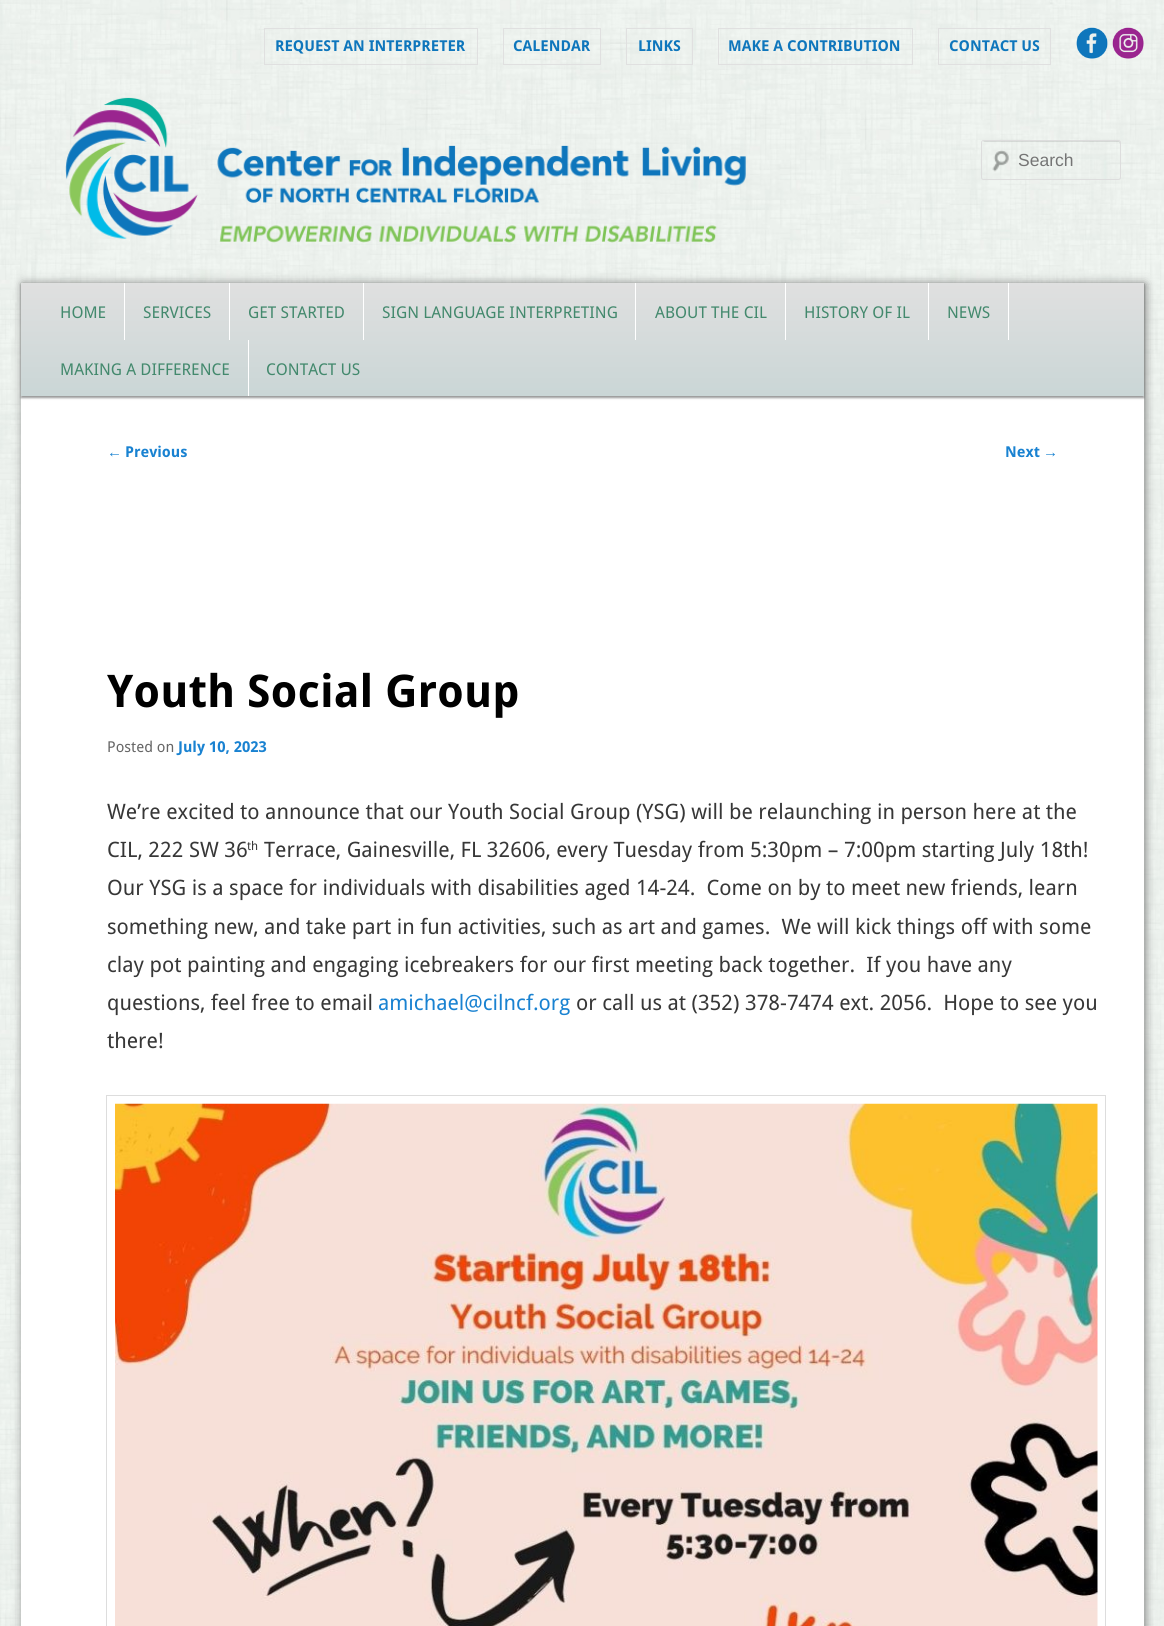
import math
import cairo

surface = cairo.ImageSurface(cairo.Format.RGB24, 1164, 1626)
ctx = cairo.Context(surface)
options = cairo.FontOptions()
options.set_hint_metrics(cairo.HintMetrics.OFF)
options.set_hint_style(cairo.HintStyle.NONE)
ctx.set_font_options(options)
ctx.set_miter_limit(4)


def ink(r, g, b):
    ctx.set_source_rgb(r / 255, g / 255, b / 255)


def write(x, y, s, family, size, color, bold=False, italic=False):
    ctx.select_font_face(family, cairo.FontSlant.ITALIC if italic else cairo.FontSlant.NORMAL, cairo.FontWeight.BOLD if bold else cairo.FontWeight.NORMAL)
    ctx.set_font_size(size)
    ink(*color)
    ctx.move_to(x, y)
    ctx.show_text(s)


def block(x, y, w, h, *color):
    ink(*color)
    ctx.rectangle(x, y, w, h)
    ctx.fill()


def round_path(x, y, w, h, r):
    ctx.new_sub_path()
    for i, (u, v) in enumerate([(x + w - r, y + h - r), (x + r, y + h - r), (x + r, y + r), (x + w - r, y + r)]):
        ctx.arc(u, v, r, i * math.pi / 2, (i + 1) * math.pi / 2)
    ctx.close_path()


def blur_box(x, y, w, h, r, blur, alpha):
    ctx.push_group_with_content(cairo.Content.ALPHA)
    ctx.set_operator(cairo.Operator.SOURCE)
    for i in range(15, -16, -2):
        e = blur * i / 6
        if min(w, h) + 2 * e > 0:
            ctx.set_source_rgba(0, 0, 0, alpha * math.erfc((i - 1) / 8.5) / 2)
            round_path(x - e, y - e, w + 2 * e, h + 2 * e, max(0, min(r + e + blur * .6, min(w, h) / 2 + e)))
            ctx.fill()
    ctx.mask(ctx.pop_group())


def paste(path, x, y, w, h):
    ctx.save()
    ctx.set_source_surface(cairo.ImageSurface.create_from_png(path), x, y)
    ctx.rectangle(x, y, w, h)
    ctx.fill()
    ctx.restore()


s1 = dict(family="Droid Sans", size=15, color=(14, 118, 188), bold=True)
s2 = dict(family="Liberation Sans", size=17.5, color=(117, 117, 117))
s3 = dict(family="Droid Sans", size=16.25, color=(67, 137, 109))
s4 = dict(family="Liberation Sans", size=15, color=(25, 130, 209))
s5 = dict(family="Droid Sans", size=15, color=(25, 130, 209), bold=True)
s6 = dict(family="Droid Sans", size=45, color=(0, 0, 0), bold=True)
s7 = dict(family="Droid Sans", size=15, color=(102, 102, 102))
s8 = dict(family="Droid Sans", size=21.25, color=(55, 55, 55))
s9 = dict(family="Droid Sans", size=12, color=(55, 55, 55))
s10 = dict(family="Droid Sans", size=21.25, color=(25, 130, 209))

ink(255, 255, 255)
ctx.paint()
paste("pic1.png", 0, 0, 1164, 1626)
ctx.rectangle(264.5, 28.5, 213, 36)
ink(224, 224, 224)
ctx.set_line_width(1)
ctx.stroke()
write(275, 51, "REQUEST AN INTERPRETER", **s1)
ctx.rectangle(503.5, 28.5, 97, 36)
ink(224, 224, 224)
ctx.stroke()
write(513, 51, "CALENDAR", **s1)
ctx.rectangle(626.5, 28.5, 66, 36)
ink(224, 224, 224)
ctx.stroke()
write(638, 51, "LINKS", **s1)
ctx.rectangle(718.5, 28.5, 194, 36)
ink(224, 224, 224)
ctx.stroke()
write(728, 51, "MAKE A CONTRIBUTION", **s1)
ctx.rectangle(938.5, 28.5, 112, 36)
ink(224, 224, 224)
ctx.stroke()
write(949, 51, "CONTACT US", **s1)
paste("pic2.png", 1076, 27, 32, 32)
paste("pic3.png", 1112, 27, 32, 32)
paste("pic4.png", 65, 97, 681, 146)
ink(117, 117, 117)
blur_box(23, 284, 1122, 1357, 0, 5, 1)
block(21, 396, 1123, 1230, 255, 255, 255)
paste("pic5.png", 992, 150, 17, 22)
ctx.set_source_rgba(0, 0, 0, 0.1)
ctx.new_path()
ctx.move_to(984, 142)
ctx.line_to(1119, 142)
ctx.line_to(1120, 144)
ctx.curve_to(1120, 143, 1120, 141, 1119, 141)
ctx.line_to(984, 141)
ctx.line_to(983, 142)
ctx.close_path()
ctx.fill()
round_path(981.5, 140.5, 139, 39, 2)
ink(221, 221, 221)
ctx.stroke()
write(1018, 166, "Search", **s2)
ink(0, 0, 0)
blur_box(21, 284, 1123, 114, 0, 1, 0.4)
gradient = cairo.LinearGradient(583, 282, 583, 396)
gradient.add_color_stop_rgba(0, 0.878, 0.878, 0.878, 1)
gradient.add_color_stop_rgba(1, 0.792, 0.839, 0.839, 1)
ctx.set_source(gradient)
ctx.rectangle(21, 283, 1123, 113)
ctx.fill()
block(124, 283, 1, 57, 255, 255, 255)
write(60, 318, "HOME", **s3)
block(229, 283, 1, 57, 255, 255, 255)
write(143, 318, "SERVICES", **s3)
block(363, 283, 1, 57, 255, 255, 255)
write(248, 318, "GET STARTED", **s3)
block(635, 283, 1, 57, 255, 255, 255)
write(382, 318, "SIGN LANGUAGE INTERPRETING", **s3)
block(785, 283, 1, 57, 255, 255, 255)
write(655, 318, "ABOUT THE CIL", **s3)
block(928, 283, 1, 57, 255, 255, 255)
write(804, 318, "HISTORY OF IL", **s3)
block(1008, 283, 1, 57, 255, 255, 255)
write(947, 318, "NEWS", **s3)
block(248, 340, 1, 56, 255, 255, 255)
write(60, 375, "MAKING A DIFFERENCE", **s3)
write(266, 375, "CONTACT US", **s3)
write(107, 457, "←", **s4)
write(125, 457, "Previous", **s5)
write(1005, 457, "Next", **s5)
write(1043, 457, "→", **s4)
write(107, 707, "Youth Social Group", **s6)
write(107, 752, "Posted on", **s7)
write(178, 752, "July 10, 2023", **s5)
write(107, 819, "We’re excited to announce that our Youth Social Group (YSG) will be relaunching in person here at the", **s8)
write(107, 857, "CIL, 222 SW 36", **s8)
write(247, 850, "th", **s9)
write(264, 857, "Terrace, Gainesville, FL 32606, every Tuesday from 5:30pm – 7:00pm starting July 18th!", **s8)
write(107, 895, "Our YSG is a space for individuals with disabilities aged 14-24.  Come on by to meet new friends, learn", **s8)
write(107, 934, "something new, and take part in fun activities, such as art and games.  We will kick things off with some", **s8)
write(107, 972, "clay pot painting and engaging icebreakers for our first meeting back together.  If you have any", **s8)
write(107, 1010, "questions, feel free to email", **s8)
write(378, 1010, "amichael@cilncf.org", **s10)
write(576, 1010, "or call us at (352) 378-7474 ext. 2056.  Hope to see you", **s8)
write(107, 1048, "there!", **s8)
ctx.rectangle(106.5, 1095.5, 999, 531)
ink(221, 221, 221)
ctx.stroke()
paste("pic6.png", 115, 1103, 983, 523)
surface.write_to_png("screenshot.png")
